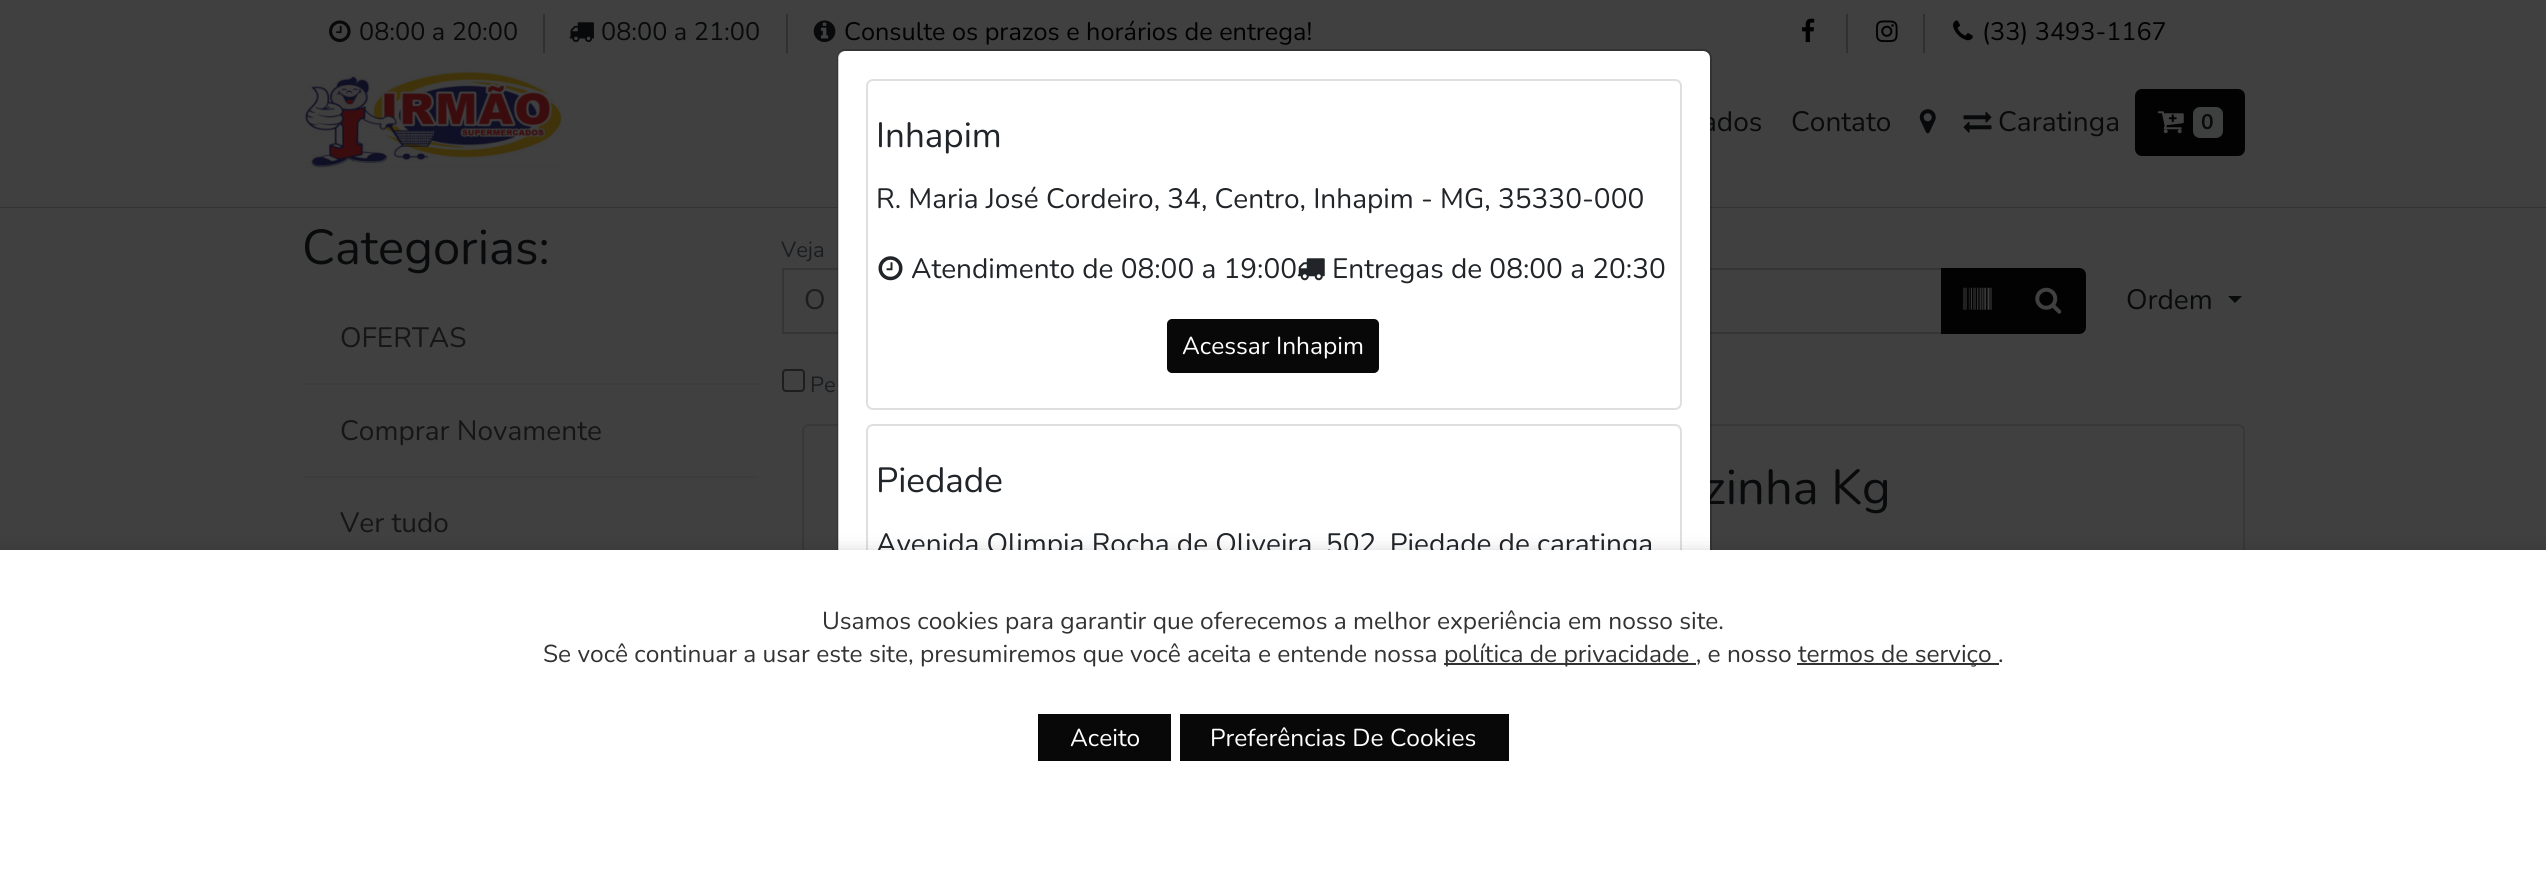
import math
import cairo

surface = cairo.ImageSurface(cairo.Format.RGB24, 2546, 883)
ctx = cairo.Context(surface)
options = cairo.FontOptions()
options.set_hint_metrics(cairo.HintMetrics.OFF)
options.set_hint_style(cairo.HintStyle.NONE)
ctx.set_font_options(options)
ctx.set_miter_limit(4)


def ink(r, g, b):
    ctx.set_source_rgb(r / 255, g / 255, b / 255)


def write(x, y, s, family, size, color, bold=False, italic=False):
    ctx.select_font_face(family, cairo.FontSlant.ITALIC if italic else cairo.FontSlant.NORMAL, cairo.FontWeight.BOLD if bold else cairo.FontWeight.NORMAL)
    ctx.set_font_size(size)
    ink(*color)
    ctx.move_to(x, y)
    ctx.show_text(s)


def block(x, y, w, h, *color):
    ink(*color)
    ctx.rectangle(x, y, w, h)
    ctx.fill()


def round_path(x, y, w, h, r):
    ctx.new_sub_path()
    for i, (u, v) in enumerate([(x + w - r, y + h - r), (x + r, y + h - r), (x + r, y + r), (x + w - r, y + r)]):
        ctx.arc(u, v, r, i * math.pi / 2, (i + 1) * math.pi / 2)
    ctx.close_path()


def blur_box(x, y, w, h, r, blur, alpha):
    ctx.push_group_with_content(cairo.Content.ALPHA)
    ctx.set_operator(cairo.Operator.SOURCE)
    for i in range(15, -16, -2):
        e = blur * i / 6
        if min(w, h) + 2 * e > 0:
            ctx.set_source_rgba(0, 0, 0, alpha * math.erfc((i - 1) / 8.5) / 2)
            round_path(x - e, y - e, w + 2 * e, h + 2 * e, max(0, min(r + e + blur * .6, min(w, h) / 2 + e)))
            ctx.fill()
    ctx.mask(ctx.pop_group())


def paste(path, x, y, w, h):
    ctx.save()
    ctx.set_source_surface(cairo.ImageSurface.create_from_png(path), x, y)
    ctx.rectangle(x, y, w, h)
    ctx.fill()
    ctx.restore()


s1 = dict(family="Nunito", size=25.25, color=(9, 10, 11))
s2 = dict(family="Nunito", size=25.25, color=(3, 2, 2))
s3 = dict(family="Nunito", size=28, color=(9, 10, 11))
s4 = dict(family="Nunito", size=21, color=(9, 10, 11), bold=True)
s5 = dict(family="Nunito", size=49, color=(9, 10, 11))
s6 = dict(family="Nunito", size=35, color=(33, 37, 41))
s7 = dict(family="Nunito", size=28, color=(33, 37, 41))
s8 = dict(family="Nunito", size=24.5, color=(255, 255, 255))
s9 = dict(family="Nunito", size=28, color=(22, 22, 22))
s10 = dict(family="Nunito", size=22, color=(27, 30, 32))
s11 = dict(family="Nunito", size=28, color=(27, 30, 32))
s12 = dict(family="Nunito", size=24.5, color=(51, 51, 51))

ink(64, 64, 64)
ctx.paint()
ctx.rectangle(-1, -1, 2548, 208)
ink(51, 51, 51)
ctx.stroke()
block(0, 206, 2546, 1, 64, 64, 64)
block(543, 14, 2, 39, 48, 48, 48)
paste("pic1.png", 329, 20, 22, 23)
write(359, 40, "08:00 a 20:00", **s1)
block(786, 14, 2, 39, 48, 48, 48)
paste("pic2.png", 569, 22, 25, 20)
write(601, 40, "08:00 a 21:00", **s1)
paste("pic3.png", 813, 20, 23, 23)
write(844, 40, "Consulte os prazos e horários de entrega!", **s2)
block(1846, 14, 2, 39, 48, 48, 48)
paste("pic4.png", 1802, 18, 13, 25)
block(1923, 14, 2, 39, 48, 48, 48)
paste("pic5.png", 1876, 20, 22, 23)
paste("pic6.png", 1953, 20, 20, 21)
write(1982, 40, "(33) 3493-1167", **s2)
paste("pic7.png", 305, 71, 257, 97)
write(1702, 131, "ados", **s3)
write(1791, 131, "Contato", **s3)
paste("pic8.png", 1919, 109, 17, 25)
paste("pic9.png", 1963, 111, 29, 22)
write(1998, 131, "Caratinga", **s3)
ink(3, 2, 2)
round_path(2136, 90, 108, 65, 6)
ctx.fill_preserve()
ctx.stroke()
paste("pic10.png", 2157, 111, 27, 23)
ink(62, 63, 63)
round_path(2193, 107, 30, 31, 7)
ctx.fill()
write(2201, 129, "0", **s4)
ctx.rectangle(783, 269, 1159, 64)
ink(52, 53, 55)
ctx.stroke()
round_path(803, 425, 1441, 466, 6)
ink(56, 56, 56)
ctx.stroke()
write(1703, 504, "zinha Kg", **s5)
ink(255, 255, 255)
ctx.new_path()
ctx.move_to(845, 51)
ctx.line_to(1703, 51)
ctx.curve_to(1707, 51, 1710, 54, 1710, 58)
ctx.line_to(1710, 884)
ctx.line_to(838, 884)
ctx.line_to(838, 58)
ctx.curve_to(838, 54, 841, 51, 845, 51)
ctx.close_path()
ctx.fill()
round_path(838, 50, 873, 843, 8)
ctx.set_source_rgba(0, 0, 0, 0.2)
ctx.stroke()
round_path(867, 80, 814, 329, 6)
ink(223, 223, 223)
ctx.stroke()
write(876, 147, "Inhapim", **s6)
write(876, 208, "R. Maria José Cordeiro, 34, Centro, Inhapim - MG, 35330-000", **s7)
paste("pic11.png", 878, 256, 25, 25)
write(911, 278, "Atendimento de 08:00 a 19:00", **s7)
paste("pic12.png", 1297, 258, 28, 23)
write(1332, 278, "Entregas de 08:00 a 20:30", **s7)
ink(9, 8, 8)
round_path(1168, 320, 210, 52, 4)
ctx.fill_preserve()
ctx.stroke()
write(1182, 354, "Acessar Inhapim", **s8)
round_path(867, 425, 814, 370, 6)
ink(223, 223, 223)
ctx.stroke()
write(876, 492, "Piedade", **s6)
write(876, 553, "Avenida Olimpia Rocha de Oliveira, 502, Piedade de caratinga", **s7)
write(302, 264, "Categorias:", **s5)
block(303, 383, 455, 2, 60, 60, 60)
write(340, 347, "OFERTAS", **s9)
block(303, 476, 455, 2, 60, 60, 60)
write(340, 440, "Comprar Novamente", **s9)
write(340, 532, "Ver tudo", **s9)
write(781, 257, "Veja", **s10)
write(804, 309, "O", **s11)
block(1941, 268, 72, 66, 3, 2, 2)
paste("pic13.png", 1963, 287, 29, 23)
ctx.new_path()
ctx.move_to(2014, 269)
ctx.line_to(2079, 269)
ctx.curve_to(2082.5, 269, 2085, 271.5, 2085, 275)
ctx.line_to(2085, 327)
ctx.curve_to(2085, 330.5, 2082.5, 333, 2079, 333)
ctx.line_to(2014, 333)
ctx.close_path()
ctx.fill_preserve()
ctx.stroke()
paste("pic14.png", 2035, 287, 27, 27)
write(2126, 309, "Ordem", **s3)
ctx.new_path()
ctx.move_to(2228, 296)
ctx.line_to(2242, 296)
ctx.line_to(2235, 303)
ctx.close_path()
ctx.fill()
round_path(783, 370, 21, 21, 3)
ink(30, 30, 30)
ctx.stroke()
write(810, 392, "Pe", **s10)
ink(0, 0, 0)
blur_box(0, 557, 2546, 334, 0, 10.5, 0.3)
block(0, 550, 2546, 333, 255, 255, 255)
write(822, 629, "Usamos cookies para garantir que oferecemos a melhor experiência em nosso site.", **s12)
write(543, 662, "Se você continuar a usar este site, presumiremos que você aceita e entende nossa", **s12)
block(1444, 663, 252, 2, 51, 51, 51)
write(1444, 662, "política de privacidade , e nosso", **s12)
block(1797, 663, 202, 2, 51, 51, 51)
write(1798, 662, "termos de serviço .", **s12)
block(1038, 714, 133, 47, 9, 8, 8)
write(1070, 746, "Aceito", **s8)
block(1180, 714, 329, 47, 9, 8, 8)
write(1210, 746, "Preferências De Cookies", **s8)
surface.write_to_png("screenshot.png")
